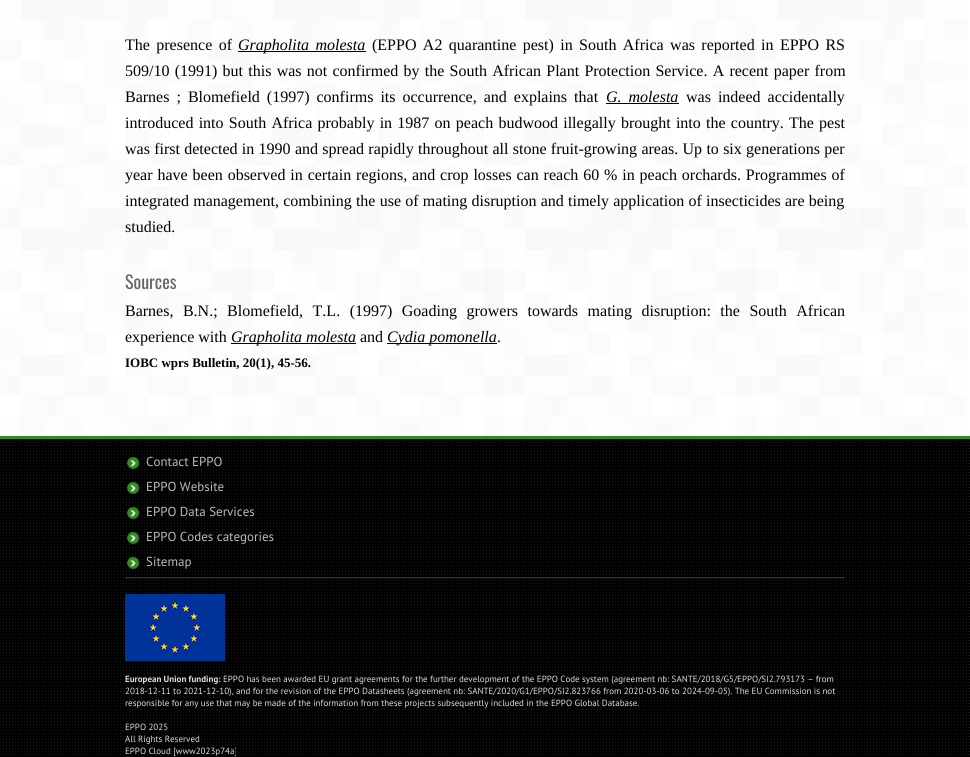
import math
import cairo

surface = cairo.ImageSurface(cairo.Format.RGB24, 970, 757)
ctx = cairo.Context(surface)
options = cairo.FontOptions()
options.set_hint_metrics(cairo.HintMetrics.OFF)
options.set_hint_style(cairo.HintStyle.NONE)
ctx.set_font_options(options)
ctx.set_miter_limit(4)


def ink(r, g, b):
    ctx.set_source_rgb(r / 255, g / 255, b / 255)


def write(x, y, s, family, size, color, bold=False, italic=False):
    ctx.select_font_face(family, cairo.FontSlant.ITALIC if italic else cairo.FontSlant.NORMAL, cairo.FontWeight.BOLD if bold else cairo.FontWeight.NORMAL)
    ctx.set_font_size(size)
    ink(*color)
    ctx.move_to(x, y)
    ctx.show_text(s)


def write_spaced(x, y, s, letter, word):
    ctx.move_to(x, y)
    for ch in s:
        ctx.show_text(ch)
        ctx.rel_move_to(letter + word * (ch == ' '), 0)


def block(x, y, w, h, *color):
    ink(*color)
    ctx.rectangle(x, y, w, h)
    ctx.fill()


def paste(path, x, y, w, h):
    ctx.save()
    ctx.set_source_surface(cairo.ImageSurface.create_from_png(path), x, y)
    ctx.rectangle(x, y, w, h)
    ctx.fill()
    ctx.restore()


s1 = dict(family="Liberation Serif", size=16, color=(0, 0, 0))
s2 = dict(family="Oswald", size=18, color=(102, 102, 102))
s3 = dict(family="Liberation Serif", size=16, color=(0, 0, 0), italic=True)
s4 = dict(family="Liberation Serif", size=13, color=(0, 0, 0), bold=True)
s5 = dict(family="PT Sans", size=13, color=(187, 187, 187))
s6 = dict(family="PT Sans", size=9, color=(221, 221, 221), bold=True)
s7 = dict(family="PT Sans", size=9, color=(221, 221, 221))

ink(255, 255, 255)
ctx.paint()
paste("pic1.png", 0, 0, 967, 436)
ctx.select_font_face("Liberation Serif")
ctx.set_font_size(16)
ink(0, 0, 0)
write_spaced(125, 50, "The presence of", 0, 2.4)
block(238, 51, 128, 1, 0, 0, 0)
ctx.select_font_face("Liberation Serif", cairo.FontSlant.ITALIC)
write_spaced(238, 50, "Grapholita molesta", 0, 2.4)
ctx.select_font_face("Liberation Serif")
write_spaced(372, 50, "(EPPO A2 quarantine pest) in South Africa was reported in EPPO RS", 0, 2.4)
write_spaced(125, 76, "509/10 (1991) but this was not confirmed by the South African Plant Protection Service. A recent paper from", 0, 1.25)
write_spaced(125, 102, "Barnes ; Blomefield (1997) confirms its occurrence, and explains that", 0, 3)
ctx.select_font_face("Liberation Serif", cairo.FontSlant.ITALIC)
write_spaced(606, 102, "G. molesta", 0, 3)
block(606, 103, 73, 1, 0, 0, 0)
ctx.select_font_face("Liberation Serif")
write_spaced(686, 102, "was indeed accidentally", 0, 3)
write_spaced(125, 128, "introduced into South Africa probably in 1987 on peach budwood illegally brought into the country. The pest", 0, 1.25)
write_spaced(125, 154, "was first detected in 1990 and spread rapidly throughout all stone fruit-growing areas. Up to six generations per", 0, 0.3)
write_spaced(125, 180, "year have been observed in certain regions, and crop losses can reach 60 % in peach orchards. Programmes of", 0, 0.9)
write_spaced(125, 206, "integrated management, combining the use of mating disruption and timely application of insecticides are being", 0, 0.25)
write(125, 232, "studied.", **s1)
write(125, 289, "Sources", **s2)
ctx.select_font_face("Liberation Serif")
ctx.set_font_size(16)
ink(0, 0, 0)
write_spaced(125, 316, "Barnes, B.N.; Blomefield, T.L. (1997) Goading growers towards mating disruption: the South African", 0, 5.5)
write(125, 342, "experience with", **s1)
block(231, 343, 125, 1, 0, 0, 0)
write(231, 342, "Grapholita molesta", **s3)
write(360, 342, "and", **s1)
block(387, 343, 110, 1, 0, 0, 0)
write(387, 342, "Cydia pomonella", **s3)
write(497, 342, ".", **s1)
write(125, 367, "IOBC wprs Bulletin, 20(1), 45-56.", **s4)
paste("pic2.png", 0, 439, 970, 318)
block(0, 436, 970, 3, 49, 142, 32)
paste("pic3.png", 127, 456, 13, 13)
write(146, 466, "Contact EPPO", **s5)
paste("pic4.png", 127, 481, 13, 13)
write(146, 491, "EPPO Website", **s5)
paste("pic5.png", 127, 506, 13, 13)
write(146, 516, "EPPO Data Services", **s5)
paste("pic3.png", 127, 531, 13, 13)
write(146, 541, "EPPO Codes categories", **s5)
paste("pic4.png", 127, 556, 13, 13)
write(146, 566, "Sitemap", **s5)
block(125, 577, 720, 1, 51, 51, 51)
block(125, 578, 720, 1, 17, 17, 17)
paste("pic6.png", 125, 594, 100, 67)
write(125, 682, "European Union funding:", **s6)
write(223, 682, "EPPO has been awarded EU grant agreements for the further development of the EPPO Code system (agreement nb: SANTE/2018/G5/EPPO/SI2.793173 – from", **s7)
write(125, 694, "2018-12-11 to 2021-12-10), and for the revision of the EPPO Datasheets (agreement nb: SANTE/2020/G1/EPPO/SI2.823766 from 2020-03-06 to 2024-09-05). The EU Commission is not", **s7)
write(125, 706, "responsible for any use that may be made of the information from these projects subsequently included in the EPPO Global Database.", **s7)
write(125, 730, "EPPO 2025", **s7)
write(125, 742, "All Rights Reserved", **s7)
write(125, 754, "EPPO Cloud [www2023p74a]", **s7)
surface.write_to_png("screenshot.png")
